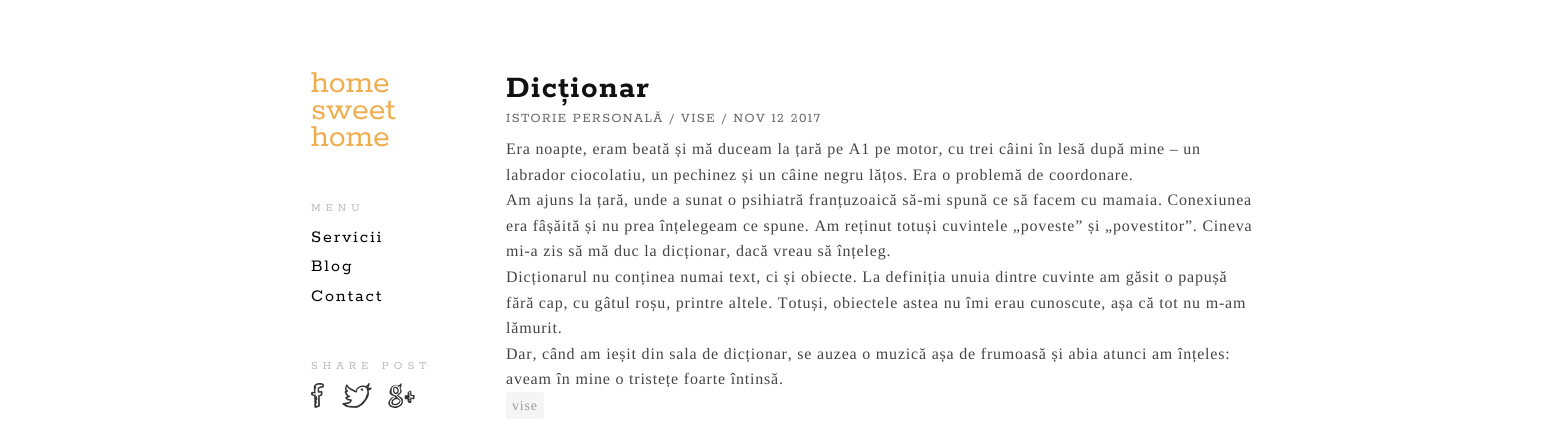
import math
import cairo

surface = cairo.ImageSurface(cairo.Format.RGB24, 1567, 445)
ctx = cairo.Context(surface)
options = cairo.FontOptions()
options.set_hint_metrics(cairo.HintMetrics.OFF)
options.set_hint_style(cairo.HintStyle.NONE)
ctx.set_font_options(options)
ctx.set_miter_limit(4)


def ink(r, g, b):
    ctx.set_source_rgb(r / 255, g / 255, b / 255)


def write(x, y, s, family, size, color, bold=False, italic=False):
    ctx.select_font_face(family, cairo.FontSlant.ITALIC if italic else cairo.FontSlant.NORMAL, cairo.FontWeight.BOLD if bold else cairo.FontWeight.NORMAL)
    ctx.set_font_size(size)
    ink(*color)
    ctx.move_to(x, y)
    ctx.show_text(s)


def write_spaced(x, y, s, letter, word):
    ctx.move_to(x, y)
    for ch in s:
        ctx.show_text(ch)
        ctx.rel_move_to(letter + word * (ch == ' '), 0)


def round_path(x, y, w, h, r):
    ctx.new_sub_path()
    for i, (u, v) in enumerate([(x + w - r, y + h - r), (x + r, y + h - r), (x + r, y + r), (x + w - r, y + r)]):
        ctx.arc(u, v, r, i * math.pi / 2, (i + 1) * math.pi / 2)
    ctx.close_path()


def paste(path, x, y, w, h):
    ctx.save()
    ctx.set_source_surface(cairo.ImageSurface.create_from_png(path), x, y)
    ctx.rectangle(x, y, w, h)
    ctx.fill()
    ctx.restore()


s1 = dict(family="Rokkitt", size=34, color=(240, 173, 78))

ink(255, 255, 255)
ctx.paint()
write(311, 92, "home", **s1)
write(311, 119, "sweet", **s1)
write(311, 146, "home", **s1)
ctx.set_font_size(12)
ink(188, 188, 188)
write_spaced(311, 211, "MENU", 5, 0)
ctx.set_font_size(18)
ink(0, 0, 0)
write_spaced(311, 242, "Servicii", 2, 0)
write_spaced(311, 271, "Blog", 2, 0)
write_spaced(311, 301, "Contact", 2, 0)
ctx.set_font_size(12)
ink(188, 188, 188)
write_spaced(311, 369, "SHARE POST", 5, 0)
paste("pic1.png", 311, 383, 13, 25)
paste("pic2.png", 342, 383, 30, 25)
paste("pic3.png", 388, 383, 27, 25)
ctx.select_font_face("Rokkitt", cairo.FontSlant.NORMAL, cairo.FontWeight.BOLD)
ctx.set_font_size(33)
ink(17, 17, 17)
write_spaced(506, 97, "Dicționar", 1.5, 0)
ctx.select_font_face("Rokkitt")
ctx.set_font_size(14)
ink(102, 102, 102)
write_spaced(506, 122, "ISTORIE PERSONALĂ / VISE / NOV 12 2017", 1.4, 0)
ctx.select_font_face("Liberation Serif")
ctx.set_font_size(16)
ink(68, 68, 68)
write_spaced(506, 154, "Era noapte, eram beată și mă duceam la țară pe A1 pe motor, cu trei câini în lesă după mine – un", 0.8, 0)
write_spaced(506, 180, "labrador ciocolatiu, un pechinez și un câine negru lățos. Era o problemă de coordonare.", 0.8, 0)
write_spaced(506, 205, "Am ajuns la țară, unde a sunat o psihiatră franțuzoaică să-mi spună ce să facem cu mamaia. Conexiunea", 0.8, 0)
write_spaced(506, 231, "era fâșăită și nu prea înțelegeam ce spune. Am reținut totuși cuvintele „poveste” și „povestitor”. Cineva", 0.8, 0)
write_spaced(506, 256, "mi-a zis să mă duc la dicționar, dacă vreau să înțeleg.", 0.8, 0)
write_spaced(506, 282, "Dicționarul nu conținea numai text, ci și obiecte. La definiția unuia dintre cuvinte am găsit o papușă", 0.8, 0)
write_spaced(506, 308, "fără cap, cu gâtul roșu, printre altele. Totuși, obiectele astea nu îmi erau cunoscute, așa că tot nu m-am", 0.8, 0)
write_spaced(506, 333, "lămurit.", 0.8, 0)
write_spaced(506, 359, "Dar, când am ieșit din sala de dicționar, se auzea o muzică așa de frumoasă și abia atunci am înțeles:", 0.8, 0)
write_spaced(506, 384, "aveam în mine o tristețe foarte întinsă.", 0.8, 0)
ink(245, 245, 245)
round_path(506, 392, 38, 27, 3)
ctx.fill()
ctx.set_font_size(14)
ink(153, 153, 153)
write_spaced(512, 410, "vise", 0.8, 0)
surface.write_to_png("screenshot.png")
